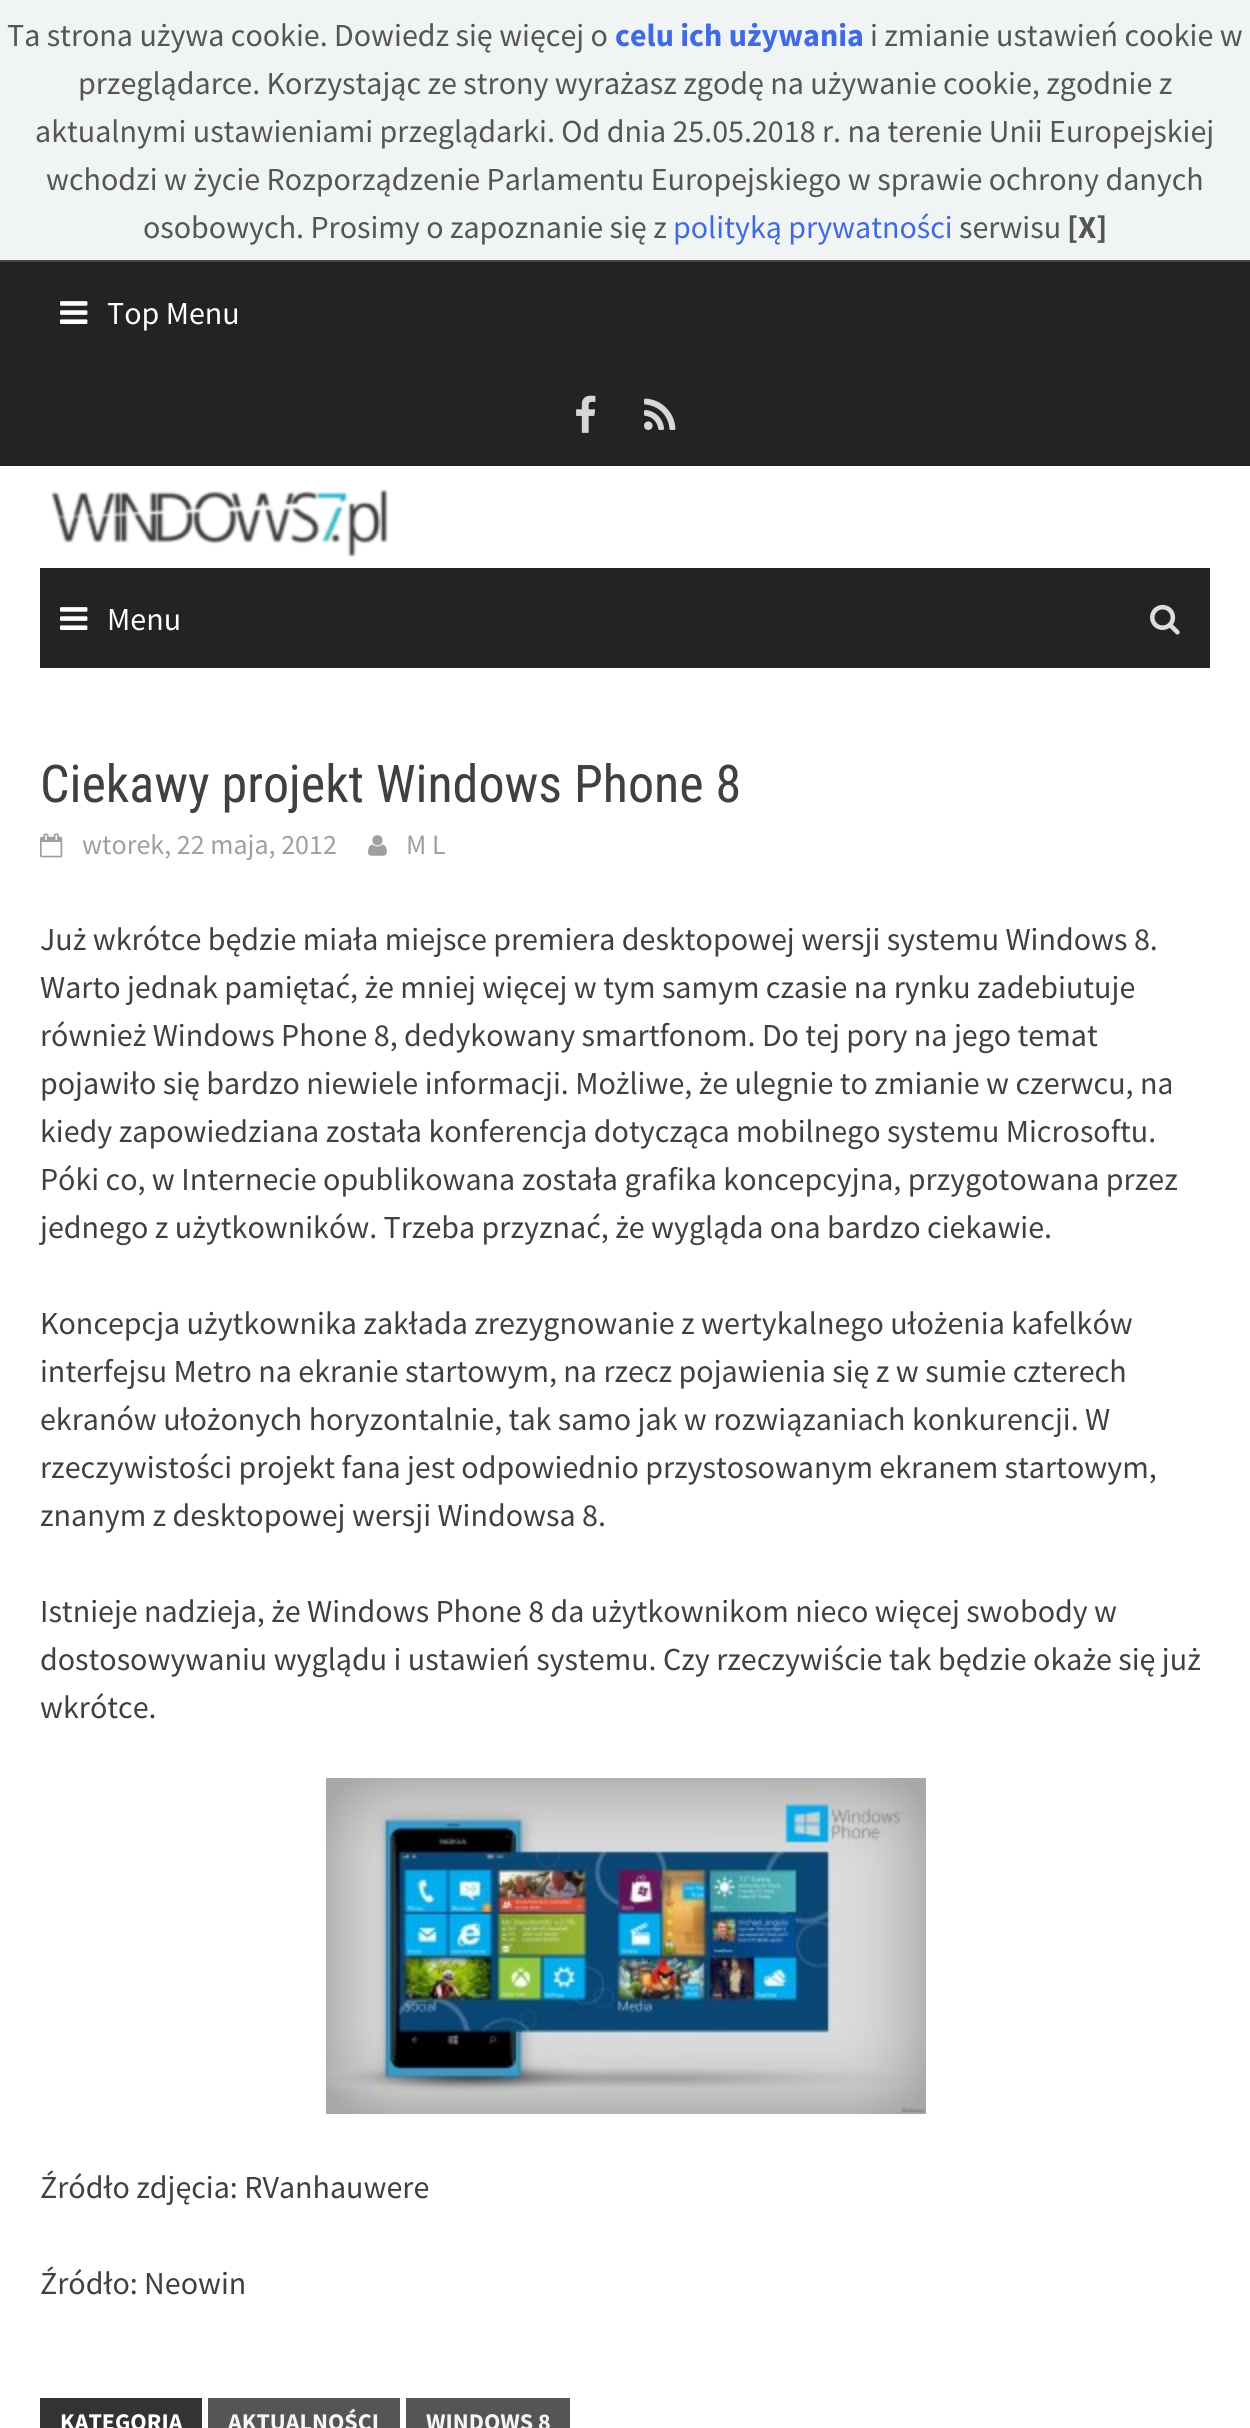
import math
import cairo

surface = cairo.ImageSurface(cairo.Format.RGB24, 1250, 2428)
ctx = cairo.Context(surface)
options = cairo.FontOptions()
options.set_hint_metrics(cairo.HintMetrics.OFF)
options.set_hint_style(cairo.HintStyle.NONE)
ctx.set_font_options(options)
ctx.set_miter_limit(4)


def ink(r, g, b):
    ctx.set_source_rgb(r / 255, g / 255, b / 255)


def write(x, y, s, family, size, color, bold=False, italic=False):
    ctx.select_font_face(family, cairo.FontSlant.ITALIC if italic else cairo.FontSlant.NORMAL, cairo.FontWeight.BOLD if bold else cairo.FontWeight.NORMAL)
    ctx.set_font_size(size)
    ink(*color)
    ctx.move_to(x, y)
    ctx.show_text(s)


def block(x, y, w, h, *color):
    ink(*color)
    ctx.rectangle(x, y, w, h)
    ctx.fill()


def paste(path, x, y, w, h):
    ctx.save()
    ctx.set_source_surface(cairo.ImageSurface.create_from_png(path), x, y)
    ctx.rectangle(x, y, w, h)
    ctx.fill()
    ctx.restore()


s1 = dict(family="Source Sans Pro", size=32, color=(85, 85, 85))
s2 = dict(family="Source Sans Pro", size=32, color=(65, 105, 225), bold=True)
s3 = dict(family="Source Sans Pro", size=32, color=(65, 105, 225))
s4 = dict(family="Source Sans Pro", size=32, color=(85, 85, 85), bold=True)
s5 = dict(family="Source Sans Pro", size=32, color=(255, 255, 255))
s6 = dict(family="Roboto Condensed", size=52, color=(64, 64, 64))
s7 = dict(family="Source Sans Pro", size=28, color=(159, 159, 159))
s8 = dict(family="Source Sans Pro", size=32, color=(64, 64, 64))
s9 = dict(family="Source Sans Pro", size=24, color=(255, 255, 255), bold=True)
s10 = dict(family="Source Sans Pro", size=24, color=(245, 245, 245), bold=True)

ink(255, 255, 255)
ctx.paint()
block(0, 0, 1250, 260, 240, 244, 245)
block(0, 260, 1250, 2, 70, 72, 72)
write(7, 46, "Ta strona używa cookie. Dowiedz się więcej o", **s1)
write(615, 46, "celu ich używania", **s2)
write(870, 46, "i zmianie ustawień cookie w", **s1)
write(78, 94, "przeglądarce. Korzystając ze strony wyrażasz zgodę na używanie cookie, zgodnie z", **s1)
write(35, 142, "aktualnymi ustawieniami przeglądarki. Od dnia 25.05.2018 r. na terenie Unii Europejskiej", **s1)
write(46, 190, "wchodzi w życie Rozporządzenie Parlamentu Europejskiego w sprawie ochrony danych", **s1)
write(143, 238, "osobowych. Prosimy o zapoznanie się z", **s1)
write(673, 238, "polityką prywatności", **s3)
write(959, 238, "serwisu", **s1)
write(1067, 238, "[X]", **s4)
block(0, 262, 1250, 204, 35, 35, 35)
paste("pic1.png", 60, 301, 28, 23)
write(107, 324, "Top Menu", **s5)
paste("pic2.png", 576, 395, 20, 38)
paste("pic3.png", 644, 398, 32, 32)
paste("pic4.png", 51, 489, 338, 69)
block(40, 568, 1170, 100, 35, 35, 35)
paste("pic1.png", 60, 607, 28, 23)
write(107, 630, "Menu", **s5)
paste("pic5.png", 1150, 604, 30, 31)
write(40, 802, "Ciekawy projekt Windows Phone 8", **s6)
paste("pic6.png", 40, 833, 23, 25)
write(82, 854, "wtorek, 22 maja, 2012", **s7)
paste("pic7.png", 368, 835, 19, 21)
write(406, 854, "M L", **s7)
write(40, 950, "Już wkrótce będzie miała miejsce premiera desktopowej wersji systemu Windows 8.", **s8)
write(40, 998, "Warto jednak pamiętać, że mniej więcej w tym samym czasie na rynku zadebiutuje", **s8)
write(40, 1046, "również Windows Phone 8, dedykowany smartfonom. Do tej pory na jego temat", **s8)
write(40, 1094, "pojawiło się bardzo niewiele informacji. Możliwe, że ulegnie to zmianie w czerwcu, na", **s8)
write(40, 1142, "kiedy zapowiedziana została konferencja dotycząca mobilnego systemu Microsoftu.", **s8)
write(40, 1190, "Póki co, w Internecie opublikowana została grafika koncepcyjna, przygotowana przez", **s8)
write(40, 1238, "jednego z użytkowników. Trzeba przyznać, że wygląda ona bardzo ciekawie.", **s8)
write(40, 1334, "Koncepcja użytkownika zakłada zrezygnowanie z wertykalnego ułożenia kafelków", **s8)
write(40, 1382, "interfejsu Metro na ekranie startowym, na rzecz pojawienia się z w sumie czterech", **s8)
write(40, 1430, "ekranów ułożonych horyzontalnie, tak samo jak w rozwiązaniach konkurencji. W", **s8)
write(40, 1478, "rzeczywistości projekt fana jest odpowiednio przystosowanym ekranem startowym,", **s8)
write(40, 1526, "znanym z desktopowej wersji Windowsa 8.", **s8)
write(40, 1622, "Istnieje nadzieja, że Windows Phone 8 da użytkownikom nieco więcej swobody w", **s8)
write(40, 1670, "dostosowywaniu wyglądu i ustawień systemu. Czy rzeczywiście tak będzie okaże się już", **s8)
write(40, 1718, "wkrótce.", **s8)
paste("pic8.png", 326, 1778, 600, 336)
write(40, 2198, "Źródło zdjęcia: RVanhauwere", **s8)
write(40, 2294, "Źródło: Neowin", **s8)
block(40, 2398, 162, 30, 51, 51, 51)
write(60, 2430, "KATEGORIA", **s9)
block(208, 2398, 192, 30, 85, 85, 85)
write(228, 2430, "AKTUALNOŚCI", **s10)
block(406, 2398, 164, 30, 85, 85, 85)
write(426, 2430, "WINDOWS 8", **s10)
surface.write_to_png("screenshot.png")
